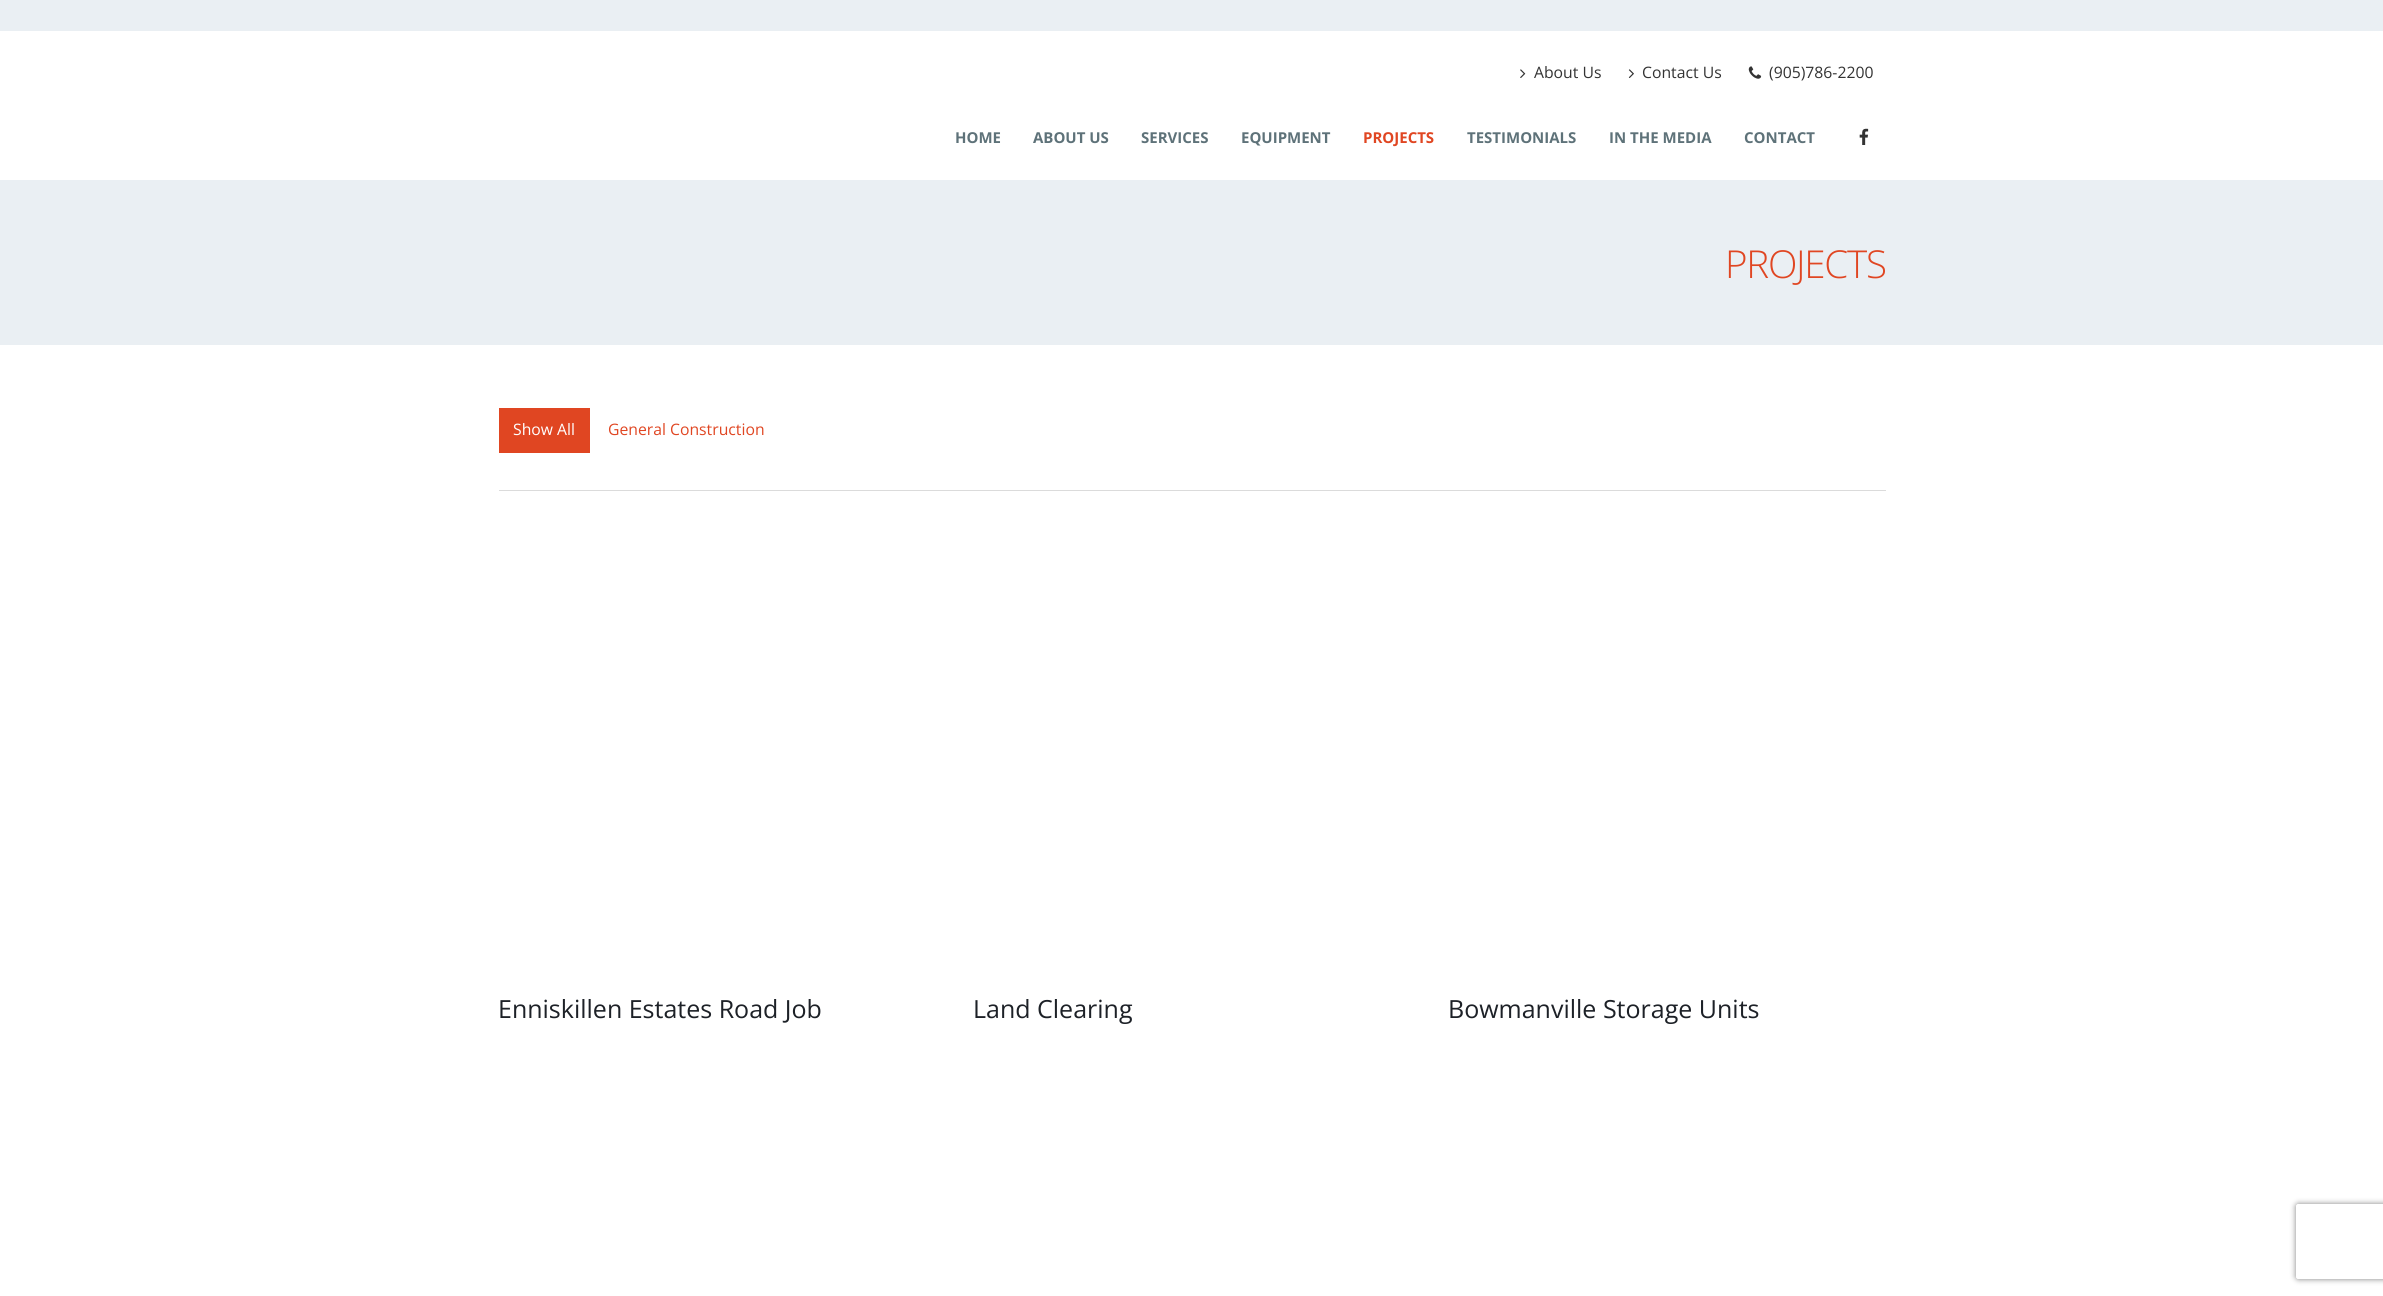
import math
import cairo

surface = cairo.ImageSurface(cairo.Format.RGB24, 2383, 1296)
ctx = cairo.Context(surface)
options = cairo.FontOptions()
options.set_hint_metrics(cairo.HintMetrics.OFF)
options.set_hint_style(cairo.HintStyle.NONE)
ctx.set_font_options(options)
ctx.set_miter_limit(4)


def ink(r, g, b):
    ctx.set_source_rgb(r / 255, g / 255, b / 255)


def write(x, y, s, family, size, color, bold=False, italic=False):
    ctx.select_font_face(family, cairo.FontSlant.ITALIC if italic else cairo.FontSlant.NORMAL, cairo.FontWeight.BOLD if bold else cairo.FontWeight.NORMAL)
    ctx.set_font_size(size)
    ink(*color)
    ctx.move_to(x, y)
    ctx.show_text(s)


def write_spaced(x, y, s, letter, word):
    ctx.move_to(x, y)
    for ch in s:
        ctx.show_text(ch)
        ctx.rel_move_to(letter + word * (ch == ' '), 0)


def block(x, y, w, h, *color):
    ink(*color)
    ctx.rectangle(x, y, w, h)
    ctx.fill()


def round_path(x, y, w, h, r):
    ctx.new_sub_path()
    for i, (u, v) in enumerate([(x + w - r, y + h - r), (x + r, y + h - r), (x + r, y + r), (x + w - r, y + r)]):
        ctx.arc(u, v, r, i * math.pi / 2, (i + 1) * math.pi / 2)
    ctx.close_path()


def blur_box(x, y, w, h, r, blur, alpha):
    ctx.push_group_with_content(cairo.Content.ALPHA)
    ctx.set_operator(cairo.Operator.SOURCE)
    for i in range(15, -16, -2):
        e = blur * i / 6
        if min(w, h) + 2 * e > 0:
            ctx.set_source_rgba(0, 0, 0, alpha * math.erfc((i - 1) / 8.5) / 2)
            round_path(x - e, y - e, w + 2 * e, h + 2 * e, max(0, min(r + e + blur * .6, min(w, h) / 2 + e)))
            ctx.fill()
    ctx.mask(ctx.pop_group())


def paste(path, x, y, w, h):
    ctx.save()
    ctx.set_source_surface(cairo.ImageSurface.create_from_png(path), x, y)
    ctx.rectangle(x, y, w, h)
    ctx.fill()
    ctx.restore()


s1 = dict(family="Open Sans", size=15.75, color=(51, 51, 51))
s2 = dict(family="Open Sans", size=15, color=(94, 114, 121), bold=True)
s3 = dict(family="Open Sans", size=15, color=(224, 70, 34), bold=True)
s4 = dict(family="Open Sans", size=15.75, color=(255, 255, 255))
s5 = dict(family="Open Sans", size=15.75, color=(224, 70, 34))
s6 = dict(family="Open Sans", size=25, color=(29, 33, 39))

ink(255, 255, 255)
ctx.paint()
block(0, 0, 2383, 31, 234, 239, 243)
paste("pic1.png", 1520, 69, 6, 9)
write(1534, 78, "About Us", **s1)
paste("pic2.png", 1628, 69, 6, 9)
write(1642, 78, "Contact Us", **s1)
paste("pic3.png", 1748, 66, 14, 13)
write(1769, 78, "(905)786-2200", **s1)
write(955, 143, "HOME", **s2)
write(1033, 143, "ABOUT US", **s2)
write(1141, 143, "SERVICES", **s2)
write(1241, 143, "EQUIPMENT", **s2)
write(1363, 143, "PROJECTS", **s3)
write(1467, 143, "TESTIMONIALS", **s2)
write(1609, 143, "IN THE MEDIA", **s2)
write(1744, 143, "CONTACT", **s2)
paste("pic4.png", 1859, 128, 10, 17)
block(0, 180, 2383, 165, 234, 239, 243)
ctx.select_font_face("Open Sans Light")
ctx.set_font_size(38.5)
ink(224, 70, 34)
write_spaced(1725, 278, "PROJECTS", -1.25, 0)
block(499, 408, 91, 45, 224, 70, 34)
write(513, 435, "Show All", **s4)
write(608, 435, "General Construction", **s5)
block(499, 490, 1387, 1, 219, 219, 219)
write(498, 1018, "Enniskillen Estates Road Job", **s6)
write(973, 1018, "Land Clearing", **s6)
write(1448, 1018, "Bowmanville Storage Units", **s6)
ctx.save()
ctx.set_fill_rule(cairo.FillRule.EVEN_ODD)
ctx.new_path()
ctx.move_to(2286, 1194)
ctx.line_to(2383, 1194)
ctx.line_to(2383, 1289)
ctx.line_to(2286, 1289)
ctx.close_path()
ctx.move_to(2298.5, 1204)
ctx.line_to(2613.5, 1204)
ctx.curve_to(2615, 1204, 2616, 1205, 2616, 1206.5)
ctx.line_to(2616, 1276.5)
ctx.curve_to(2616, 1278, 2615, 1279, 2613.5, 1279)
ctx.line_to(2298.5, 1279)
ctx.curve_to(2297, 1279, 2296, 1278, 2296, 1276.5)
ctx.line_to(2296, 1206.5)
ctx.curve_to(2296, 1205, 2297, 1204, 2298.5, 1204)
ctx.close_path()
ctx.clip()
ink(128, 128, 128)
blur_box(2296, 1204, 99, 75, 2.5, 3, 1)
ctx.restore()
surface.write_to_png("screenshot.png")
